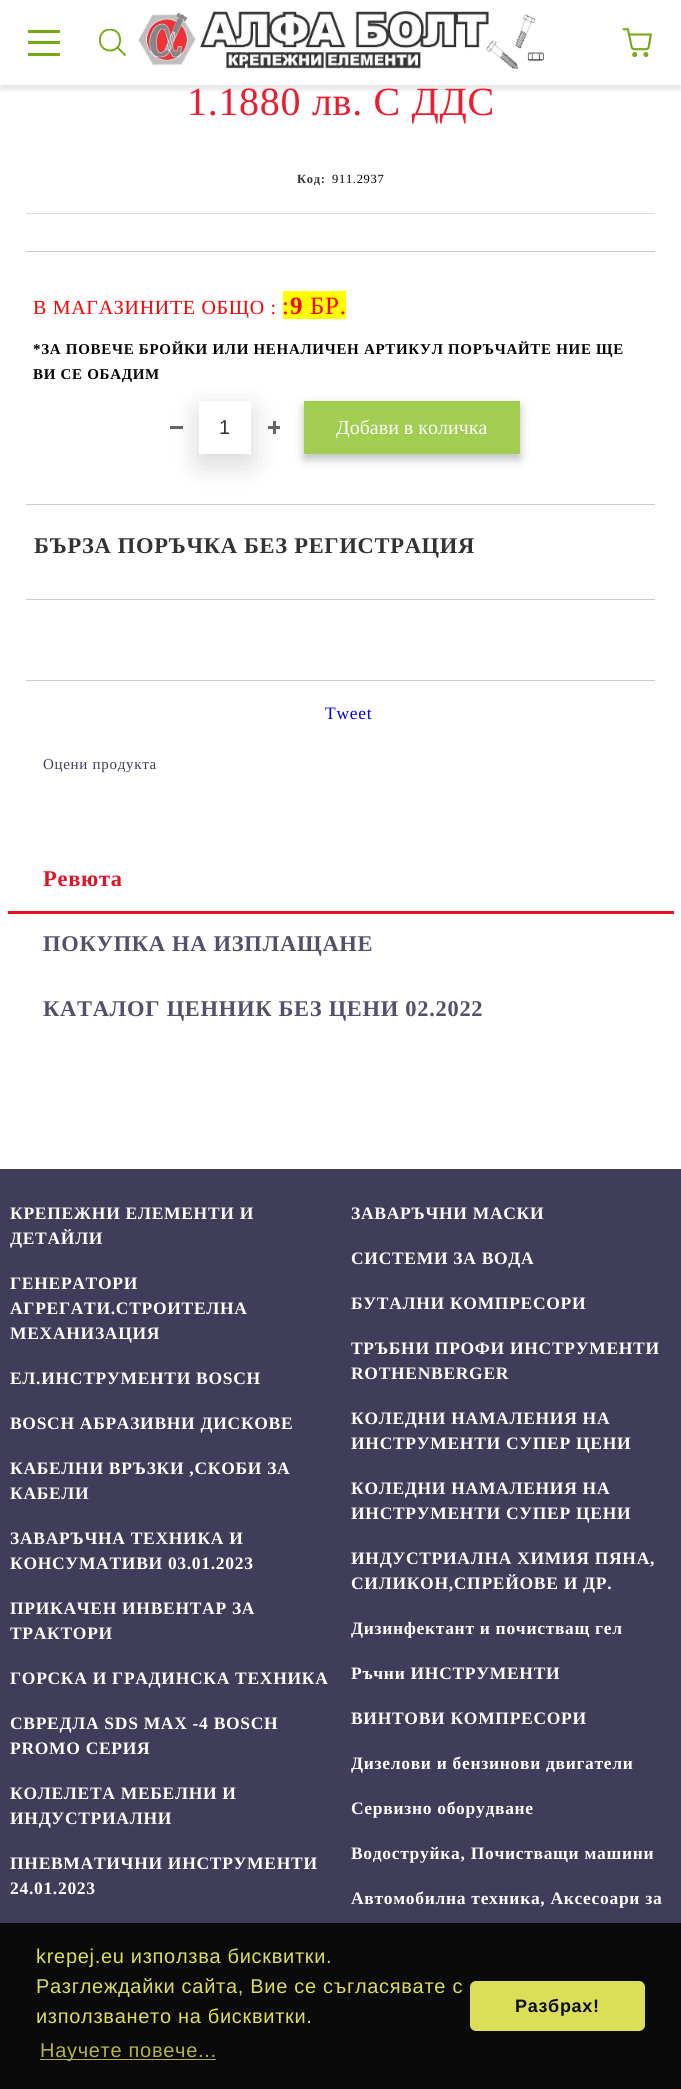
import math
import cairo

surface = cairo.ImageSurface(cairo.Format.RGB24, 681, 2089)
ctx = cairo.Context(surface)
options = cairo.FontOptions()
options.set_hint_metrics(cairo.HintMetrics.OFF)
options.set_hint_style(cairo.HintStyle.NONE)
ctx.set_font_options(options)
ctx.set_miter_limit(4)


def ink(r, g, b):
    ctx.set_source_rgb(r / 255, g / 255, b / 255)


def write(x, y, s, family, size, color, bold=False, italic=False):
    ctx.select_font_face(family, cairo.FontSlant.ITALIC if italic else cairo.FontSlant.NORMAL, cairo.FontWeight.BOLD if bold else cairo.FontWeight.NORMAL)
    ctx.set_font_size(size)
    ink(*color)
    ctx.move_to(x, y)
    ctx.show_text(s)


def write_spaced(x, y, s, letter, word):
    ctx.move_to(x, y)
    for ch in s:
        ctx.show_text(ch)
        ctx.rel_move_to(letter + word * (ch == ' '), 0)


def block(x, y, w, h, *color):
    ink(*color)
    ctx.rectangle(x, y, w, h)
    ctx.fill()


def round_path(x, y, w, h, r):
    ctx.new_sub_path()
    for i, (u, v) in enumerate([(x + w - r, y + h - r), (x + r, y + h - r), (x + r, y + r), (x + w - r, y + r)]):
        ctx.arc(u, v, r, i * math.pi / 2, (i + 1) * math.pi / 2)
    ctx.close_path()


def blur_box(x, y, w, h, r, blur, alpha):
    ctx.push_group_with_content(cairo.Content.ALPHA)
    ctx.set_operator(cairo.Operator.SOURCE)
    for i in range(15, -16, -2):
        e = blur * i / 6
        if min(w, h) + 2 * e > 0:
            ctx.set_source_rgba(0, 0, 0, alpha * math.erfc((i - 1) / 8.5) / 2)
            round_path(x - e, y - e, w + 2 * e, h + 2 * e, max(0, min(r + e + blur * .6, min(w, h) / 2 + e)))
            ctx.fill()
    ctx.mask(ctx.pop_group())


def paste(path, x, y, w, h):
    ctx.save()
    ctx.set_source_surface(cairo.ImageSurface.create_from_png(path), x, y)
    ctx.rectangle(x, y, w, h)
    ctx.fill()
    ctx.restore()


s1 = dict(family="Liberation Sans", size=20, color=(51, 51, 51))
s2 = dict(family="Liberation Serif", size=20, color=(255, 255, 255))

ink(255, 255, 255)
ctx.paint()
ctx.save()
ctx.rectangle(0, 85, 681, 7)
ctx.clip()
ink(0, 0, 0)
blur_box(0, 5, 681, 85, 0, 2.5, 0.1)
ctx.restore()
block(28, 30, 32, 3, 116, 168, 20)
block(28, 41, 32, 3, 116, 168, 20)
block(28, 53, 32, 3, 116, 168, 20)
ctx.save()
ctx.rectangle(99, 29, 27, 27)
ctx.clip()
ctx.new_path()
ctx.move_to(110, 29.5)
ctx.curve_to(96.5, 29.5, 96.5, 50.5, 110, 50.5)
ctx.curve_to(123.5, 50.5, 123.5, 29.5, 110, 29.5)
ctx.close_path()
ctx.set_line_width(1.9)
ctx.stroke()
ctx.restore()
ctx.new_path()
ctx.move_to(117.5, 47.5)
ctx.line_to(125, 55)
ctx.set_line_width(1.9)
ctx.set_line_cap(cairo.LineCap.ROUND)
ctx.stroke()
paste("pic1.png", 138, 11, 406, 58)
paste("pic2.png", 622, 28, 30, 29)
ctx.select_font_face("Liberation Serif")
ctx.set_font_size(40)
ink(237, 28, 46)
write_spaced(187, 115, "1.1880 лв. С ДДС", 0.7, 0)
block(26, 213, 629, 1, 221, 221, 221)
ctx.select_font_face("Liberation Serif", cairo.FontSlant.NORMAL, cairo.FontWeight.BOLD)
ctx.set_font_size(12.5)
ink(51, 51, 51)
write_spaced(297, 183, "Код:", 0.7, 0)
ctx.select_font_face("Liberation Serif")
ink(0, 0, 0)
write_spaced(332, 183, "911.2937", 0.7, 0)
block(26, 251, 629, 1, 204, 204, 204)
ctx.set_font_size(20)
ink(255, 0, 0)
write_spaced(33, 314, "В МАГАЗИНИТЕ ОБЩО :", 0.7, 0)
block(283, 291, 63, 28, 255, 255, 0)
ctx.set_font_size(25)
ink(255, 0, 0)
write_spaced(282, 314, ":", 0.7, 0)
ctx.select_font_face("Liberation Serif", cairo.FontSlant.NORMAL, cairo.FontWeight.BOLD)
write_spaced(290, 314, "9", 0.7, 0)
ctx.select_font_face("Liberation Serif")
write_spaced(310, 314, "БР.", 0.7, 0)
ctx.select_font_face("Liberation Serif", cairo.FontSlant.NORMAL, cairo.FontWeight.BOLD)
ctx.set_font_size(15)
ink(0, 0, 0)
write_spaced(33, 354, "*ЗА ПОВЕЧЕ БРОЙКИ ИЛИ НЕНАЛИЧЕН АРТИКУЛ ПОРЪЧАЙТЕ НИЕ ЩЕ", 0.7, 0)
write_spaced(33, 379, "ВИ СЕ ОБАДИМ", 0.7, 0)
ink(0, 0, 0)
blur_box(199, 411, 52, 53, 0, 15, 0.16)
block(170, 426, 13, 3, 102, 102, 102)
block(199, 401, 52, 53, 255, 255, 255)
write(219, 434, "1", **s1)
block(268, 426, 12, 3, 102, 102, 102)
block(273, 421, 3, 13, 102, 102, 102)
ink(0, 0, 0)
blur_box(304, 406, 216, 53, 0, 5, 0.26)
block(304, 401, 216, 53, 161, 205, 81)
write(336, 434, "Добави в количка", **s2)
block(26, 504, 629, 1, 204, 204, 204)
ctx.select_font_face("Liberation Serif", cairo.FontSlant.NORMAL, cairo.FontWeight.BOLD)
ctx.set_font_size(22.5)
ink(51, 51, 51)
write_spaced(34, 553, "БЪРЗА ПОРЪЧКА БЕЗ РЕГИСТРАЦИЯ", 0.7, 0)
block(26, 599, 629, 1, 204, 204, 204)
block(26, 680, 629, 1, 204, 204, 204)
ctx.select_font_face("Liberation Serif")
ctx.set_font_size(17.5)
ink(0, 0, 238)
write_spaced(325, 719, "Tweet", 0.7, 0)
ctx.set_font_size(15)
ink(64, 61, 90)
write_spaced(43, 769, "Оцени продукта", 0.7, 0)
block(8, 911, 666, 3, 232, 18, 37)
ctx.select_font_face("Liberation Serif", cairo.FontSlant.NORMAL, cairo.FontWeight.BOLD)
ctx.set_font_size(22.5)
write_spaced(43, 886, "Ревюта", 0.7, 0)
ink(83, 80, 107)
write_spaced(43, 951, "ПОКУПКА НА ИЗПЛАЩАНЕ", 0.7, 0)
write_spaced(43, 1016, "КАТАЛОГ ЦЕННИК БЕЗ ЦЕНИ 02.2022", 0.7, 0)
block(0, 1169, 681, 754, 64, 61, 90)
ctx.set_font_size(17.5)
ink(255, 255, 255)
write_spaced(10, 1219, "КРЕПЕЖНИ ЕЛЕМЕНТИ И", 0.7, 0)
write_spaced(10, 1244, "ДЕТАЙЛИ", 0.7, 0)
write_spaced(10, 1289, "ГЕНЕРАТОРИ", 0.7, 0)
write_spaced(10, 1314, "АГРЕГАТИ.СТРОИТЕЛНА", 0.7, 0)
write_spaced(10, 1339, "МЕХАНИЗАЦИЯ", 0.7, 0)
write_spaced(10, 1384, "ЕЛ.ИНСТРУМЕНТИ BOSCH", 0.7, 0)
write_spaced(10, 1429, "BOSCH АБРАЗИВНИ ДИСКОВЕ", 0.7, 0)
write_spaced(10, 1474, "КАБЕЛНИ ВРЪЗКИ ,СКОБИ ЗА", 0.7, 0)
write_spaced(10, 1499, "КАБЕЛИ", 0.7, 0)
write_spaced(10, 1544, "ЗАВАРЪЧНА ТЕХНИКА И", 0.7, 0)
write_spaced(10, 1569, "КОНСУМАТИВИ 03.01.2023", 0.7, 0)
write_spaced(10, 1614, "ПРИКАЧЕН ИНВЕНТАР ЗА", 0.7, 0)
write_spaced(10, 1639, "ТРАКТОРИ", 0.7, 0)
write_spaced(10, 1684, "ГОРСКА И ГРАДИНСКА ТЕХНИКА", 0.7, 0)
write_spaced(10, 1729, "СВРЕДЛА SDS MAX -4 BOSCH", 0.7, 0)
write_spaced(10, 1754, "PROMO СЕРИЯ", 0.7, 0)
write_spaced(10, 1799, "КОЛЕЛЕТА МЕБЕЛНИ И", 0.7, 0)
write_spaced(10, 1824, "ИНДУСТРИАЛНИ", 0.7, 0)
write_spaced(10, 1869, "ПНЕВМАТИЧНИ ИНСТРУМЕНТИ", 0.7, 0)
write_spaced(10, 1894, "24.01.2023", 0.7, 0)
write_spaced(351, 1219, "ЗАВАРЪЧНИ МАСКИ", 0.7, 0)
write_spaced(351, 1264, "СИСТЕМИ ЗА ВОДА", 0.7, 0)
write_spaced(351, 1309, "БУТАЛНИ КОМПРЕСОРИ", 0.7, 0)
write_spaced(351, 1354, "ТРЪБНИ ПРОФИ ИНСТРУМЕНТИ", 0.7, 0)
write_spaced(351, 1379, "ROTHENBERGER", 0.7, 0)
write_spaced(351, 1424, "КОЛЕДНИ НАМАЛЕНИЯ НА", 0.7, 0)
write_spaced(351, 1449, "ИНСТРУМЕНТИ СУПЕР ЦЕНИ", 0.7, 0)
write_spaced(351, 1494, "КОЛЕДНИ НАМАЛЕНИЯ НА", 0.7, 0)
write_spaced(351, 1519, "ИНСТРУМЕНТИ СУПЕР ЦЕНИ", 0.7, 0)
write_spaced(351, 1564, "ИНДУСТРИАЛНА ХИМИЯ ПЯНА,", 0.7, 0)
write_spaced(351, 1589, "СИЛИКОН,СПРЕЙОВЕ И ДР.", 0.7, 0)
write_spaced(351, 1634, "Дизинфектант и почистващ гел", 0.7, 0)
write_spaced(351, 1679, "Ръчни ИНСТРУМЕНТИ", 0.7, 0)
write_spaced(351, 1724, "ВИНТОВИ КОМПРЕСОРИ", 0.7, 0)
write_spaced(351, 1769, "Дизелови и бензинови двигатели", 0.7, 0)
write_spaced(351, 1814, "Сервизно оборудване", 0.7, 0)
write_spaced(351, 1859, "Водоструйка, Почистващи машини", 0.7, 0)
write_spaced(351, 1904, "Автомобилна техника, Аксесоари за", 0.7, 0)
block(0, 1923, 681, 166, 10, 10, 10)
ctx.select_font_face("Liberation Sans")
ctx.set_font_size(20)
ink(219, 222, 87)
write_spaced(36, 1963, "krepej.eu използва бисквитки.", 0.7, 0)
write_spaced(36, 1993, "Разглеждайки сайта, Вие се съгласявате с", 0.7, 0)
write_spaced(36, 2023, "използването на бисквитки.", 0.7, 0)
block(40, 2059, 176, 1, 177, 180, 72)
write_spaced(40, 2057, "Научете повече...", 0.7, 0)
ink(219, 222, 87)
round_path(470, 1981, 175, 50, 6)
ctx.fill()
ctx.select_font_face("Liberation Sans", cairo.FontSlant.NORMAL, cairo.FontWeight.BOLD)
ctx.set_font_size(18)
ink(13, 13, 11)
write_spaced(515, 2012, "Разбрах!", 0.7, 0)
surface.write_to_png("screenshot.png")
